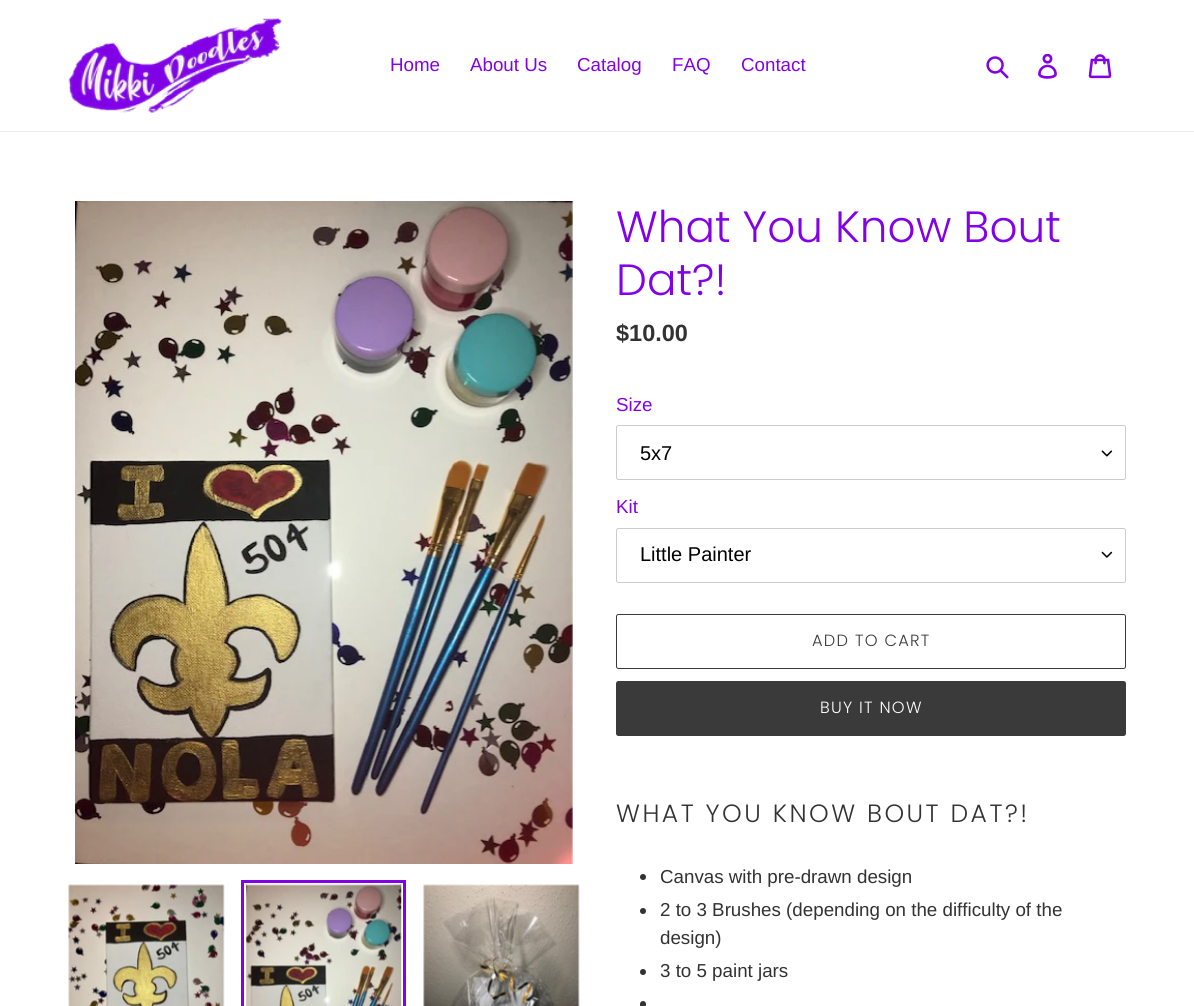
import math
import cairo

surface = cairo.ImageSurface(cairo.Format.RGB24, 1194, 1006)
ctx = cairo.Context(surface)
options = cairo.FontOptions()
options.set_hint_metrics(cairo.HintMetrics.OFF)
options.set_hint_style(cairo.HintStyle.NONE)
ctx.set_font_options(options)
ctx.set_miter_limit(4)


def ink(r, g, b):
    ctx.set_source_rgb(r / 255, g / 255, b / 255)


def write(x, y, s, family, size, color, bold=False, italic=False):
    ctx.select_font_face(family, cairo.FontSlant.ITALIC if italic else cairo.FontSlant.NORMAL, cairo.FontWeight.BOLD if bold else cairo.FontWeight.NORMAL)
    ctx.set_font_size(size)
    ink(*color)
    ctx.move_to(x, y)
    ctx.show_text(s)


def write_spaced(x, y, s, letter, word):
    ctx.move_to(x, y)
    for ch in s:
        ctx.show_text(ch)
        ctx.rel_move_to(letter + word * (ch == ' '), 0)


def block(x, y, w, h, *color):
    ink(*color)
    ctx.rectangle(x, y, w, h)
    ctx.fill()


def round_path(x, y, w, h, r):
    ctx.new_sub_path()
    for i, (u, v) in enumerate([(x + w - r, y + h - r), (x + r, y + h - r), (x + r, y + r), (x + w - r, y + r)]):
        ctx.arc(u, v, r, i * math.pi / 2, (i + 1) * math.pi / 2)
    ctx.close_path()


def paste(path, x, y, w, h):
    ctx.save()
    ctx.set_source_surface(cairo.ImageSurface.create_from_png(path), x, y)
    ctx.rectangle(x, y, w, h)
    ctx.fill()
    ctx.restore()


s1 = dict(family="Liberation Sans", size=18.75, color=(130, 1, 231))
s2 = dict(family="Poppins Light", size=43.75, color=(130, 1, 231))
s3 = dict(family="Liberation Sans", size=23.5, color=(51, 50, 50), bold=True)
s4 = dict(family="Liberation Sans", size=20, color=(0, 0, 0))
s5 = dict(family="Liberation Sans", size=18.75, color=(51, 50, 50))

ink(255, 255, 255)
ctx.paint()
block(0, 131, 1194, 1, 235, 235, 235)
paste("pic1.png", 68, 18, 214, 95)
write(390, 71, "Home", **s1)
write(470, 71, "About Us", **s1)
write(577, 71, "Catalog", **s1)
write(672, 71, "FAQ", **s1)
write(741, 71, "Contact", **s1)
paste("pic2.png", 986, 56, 23, 23)
paste("pic3.png", 1038, 54, 19, 25)
paste("pic4.png", 1088, 54, 24, 25)
paste("pic5.png", 75, 201, 498, 663)
paste("pic6.png", 68, 884, 157, 122)
ctx.rectangle(242.5, 881.5, 162, 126)
ctx.set_line_width(3)
ctx.stroke()
paste("pic7.png", 246, 884, 156, 122)
paste("pic8.png", 423, 884, 157, 122)
write(616, 242, "What You Know Bout", **s2)
write(616, 295, "Dat?!", **s2)
write(616, 341, "$10.00", **s3)
write(616, 411, "Size", **s1)
paste("pic9.png", 1101, 450, 12, 7)
round_path(616.5, 425.5, 509, 54, 2)
ink(204, 204, 204)
ctx.set_line_width(1)
ctx.stroke()
write(640, 460, "5x7", **s4)
write(616, 513, "Kit", **s1)
paste("pic10.png", 1101, 551, 12, 7)
round_path(616.5, 528.5, 509, 54, 2)
ink(204, 204, 204)
ctx.stroke()
write(640, 561, "Little Painter", **s4)
round_path(616.5, 614.5, 509, 54, 2)
ink(58, 58, 58)
ctx.stroke()
ctx.select_font_face("Poppins Light")
ctx.set_font_size(16.25)
write_spaced(812, 646, "ADD TO CART", 1.25, 0)
round_path(616, 681, 510, 55, 2.5)
ctx.fill()
ink(255, 255, 255)
write_spaced(820, 713, "BUY IT NOW", 1.25, 0)
ctx.set_font_size(25)
ink(51, 50, 50)
write_spaced(616, 822, "WHAT YOU KNOW BOUT DAT?!", 2.5, 0)
ctx.new_path()
ctx.arc(643, 877, 3, 0, 2 * math.pi)
ctx.fill()
write(660, 883, "Canvas with pre-drawn design", **s5)
ctx.new_path()
ctx.arc(643, 911, 3, 0, 2 * math.pi)
ctx.fill()
write(660, 916, "2 to 3 Brushes (depending on the difficulty of the", **s5)
write(660, 944, "design)", **s5)
ctx.new_path()
ctx.arc(643, 972, 3, 0, 2 * math.pi)
ctx.fill()
write(660, 977, "3 to 5 paint jars", **s5)
round_path(640, 1001, 6, 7, 3)
ctx.fill()
surface.write_to_png("screenshot.png")
